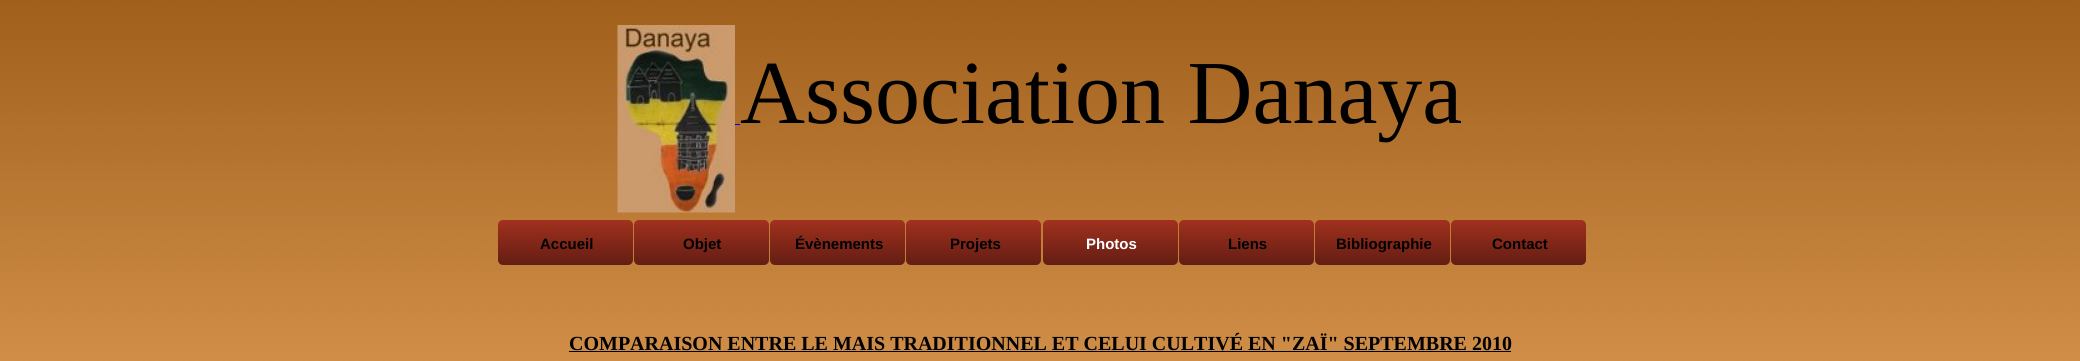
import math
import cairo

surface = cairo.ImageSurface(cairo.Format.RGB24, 2080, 361)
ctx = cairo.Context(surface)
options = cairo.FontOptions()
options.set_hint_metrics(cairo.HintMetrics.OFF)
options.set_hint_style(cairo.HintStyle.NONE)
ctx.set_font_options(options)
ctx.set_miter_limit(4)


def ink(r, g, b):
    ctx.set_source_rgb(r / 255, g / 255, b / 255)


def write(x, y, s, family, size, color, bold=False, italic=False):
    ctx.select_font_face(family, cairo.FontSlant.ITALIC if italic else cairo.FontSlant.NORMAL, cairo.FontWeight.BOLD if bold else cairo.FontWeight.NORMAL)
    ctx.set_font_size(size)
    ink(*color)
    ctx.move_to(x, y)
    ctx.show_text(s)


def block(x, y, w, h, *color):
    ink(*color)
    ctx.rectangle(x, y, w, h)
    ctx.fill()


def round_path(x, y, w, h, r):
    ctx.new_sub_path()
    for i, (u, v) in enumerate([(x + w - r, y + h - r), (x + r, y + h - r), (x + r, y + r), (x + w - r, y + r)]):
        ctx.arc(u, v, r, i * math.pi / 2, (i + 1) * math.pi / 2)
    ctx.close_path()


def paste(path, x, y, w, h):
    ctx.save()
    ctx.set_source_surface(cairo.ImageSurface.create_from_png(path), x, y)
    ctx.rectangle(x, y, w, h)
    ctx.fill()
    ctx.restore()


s1 = dict(family="Liberation Serif", size=90, color=(0, 0, 0))
s2 = dict(family="Liberation Sans", size=15, color=(0, 0, 0), bold=True)
s3 = dict(family="Liberation Sans", size=15, color=(255, 255, 255), bold=True)
s4 = dict(family="Liberation Serif", size=20, color=(0, 0, 0), bold=True)

ink(255, 255, 255)
ctx.paint()
paste("pic1.png", 0, 0, 2080, 361)
paste("pic2.png", 617, 25, 118, 188)
block(735, 124, 5, 1, 0, 0, 238)
write(740, 123, "Association Danaya", **s1)
gradient = cairo.LinearGradient(498, 265, 498, 220)
gradient.add_color_stop_rgba(0, 0.392, 0.114, 0.075, 1)
gradient.add_color_stop_rgba(1, 0.631, 0.192, 0.118, 1)
ctx.set_source(gradient)
round_path(498, 220, 135, 45, 5)
ctx.fill()
write(540, 249, "Accueil", **s2)
gradient = cairo.LinearGradient(634, 265, 634, 220)
gradient.add_color_stop_rgba(0, 0.392, 0.114, 0.075, 1)
gradient.add_color_stop_rgba(1, 0.631, 0.192, 0.118, 1)
ctx.set_source(gradient)
round_path(634, 220, 135, 45, 5)
ctx.fill()
write(683, 249, "Objet", **s2)
gradient = cairo.LinearGradient(770, 265, 770, 220)
gradient.add_color_stop_rgba(0, 0.392, 0.114, 0.075, 1)
gradient.add_color_stop_rgba(1, 0.631, 0.192, 0.118, 1)
ctx.set_source(gradient)
round_path(770, 220, 135, 45, 5)
ctx.fill()
write(795, 249, "Évènements", **s2)
gradient = cairo.LinearGradient(906, 265, 906, 220)
gradient.add_color_stop_rgba(0, 0.392, 0.114, 0.075, 1)
gradient.add_color_stop_rgba(1, 0.631, 0.192, 0.118, 1)
ctx.set_source(gradient)
round_path(906, 220, 135, 45, 5)
ctx.fill()
write(950, 249, "Projets", **s2)
gradient = cairo.LinearGradient(1043, 265, 1043, 220)
gradient.add_color_stop_rgba(0, 0.392, 0.114, 0.075, 1)
gradient.add_color_stop_rgba(1, 0.631, 0.192, 0.118, 1)
ctx.set_source(gradient)
round_path(1043, 220, 135, 45, 5)
ctx.fill()
write(1086, 249, "Photos", **s3)
gradient = cairo.LinearGradient(1179, 265, 1179, 220)
gradient.add_color_stop_rgba(0, 0.392, 0.114, 0.075, 1)
gradient.add_color_stop_rgba(1, 0.631, 0.192, 0.118, 1)
ctx.set_source(gradient)
round_path(1179, 220, 135, 45, 5)
ctx.fill()
write(1228, 249, "Liens", **s2)
gradient = cairo.LinearGradient(1315, 265, 1315, 220)
gradient.add_color_stop_rgba(0, 0.392, 0.114, 0.075, 1)
gradient.add_color_stop_rgba(1, 0.631, 0.192, 0.118, 1)
ctx.set_source(gradient)
round_path(1315, 220, 135, 45, 5)
ctx.fill()
write(1336, 249, "Bibliographie", **s2)
gradient = cairo.LinearGradient(1451, 265, 1451, 220)
gradient.add_color_stop_rgba(0, 0.392, 0.114, 0.075, 1)
gradient.add_color_stop_rgba(1, 0.631, 0.192, 0.118, 1)
ctx.set_source(gradient)
round_path(1451, 220, 135, 45, 5)
ctx.fill()
write(1492, 249, "Contact", **s2)
write(569, 350, "COMPARAISON ENTRE LE MAIS TRADITIONNEL ET CELUI CULTIVÉ EN \"ZAÏ\" SEPTEMBRE 2010", **s4)
block(569, 351, 942, 1, 0, 0, 0)
surface.write_to_png("screenshot.png")
